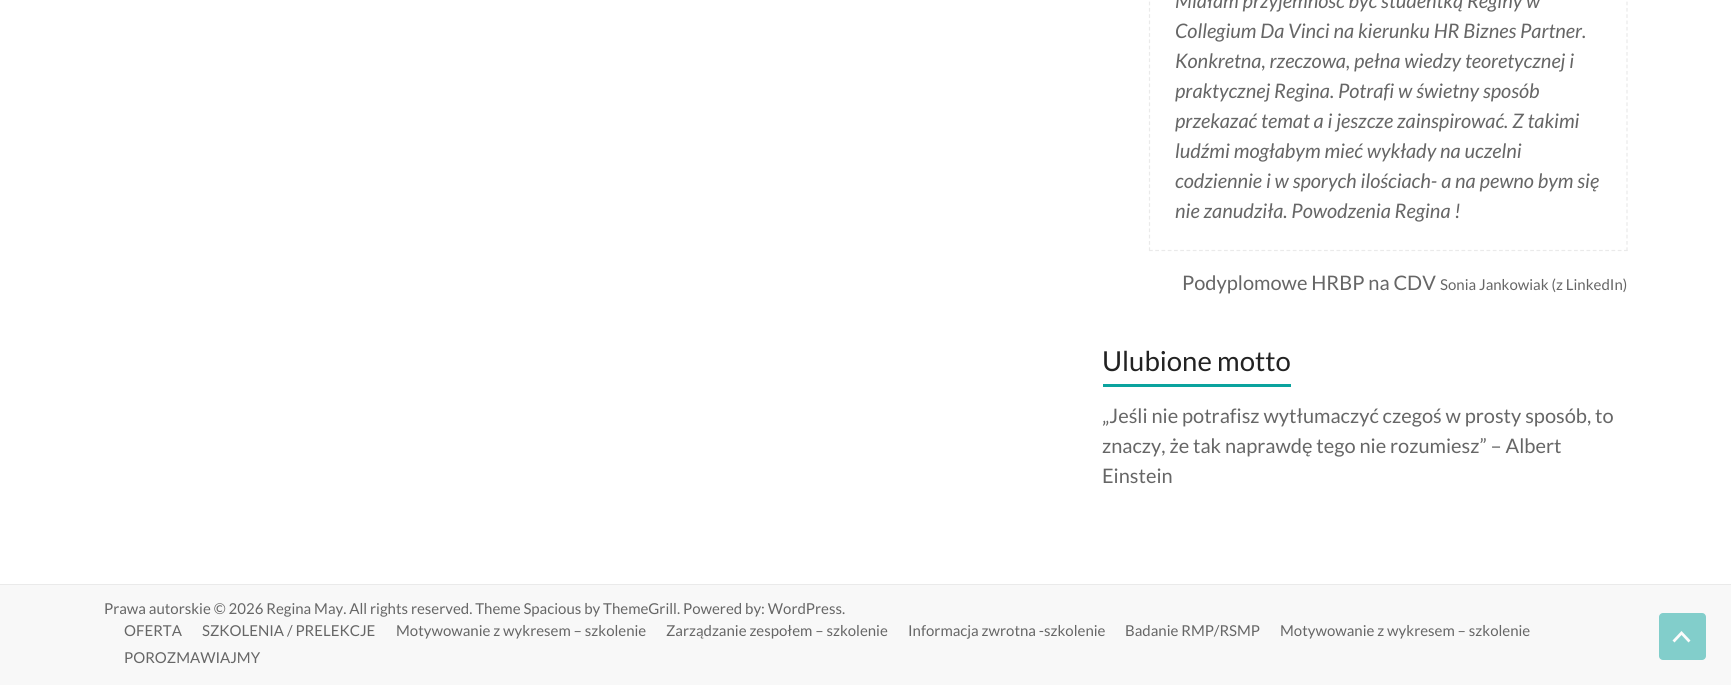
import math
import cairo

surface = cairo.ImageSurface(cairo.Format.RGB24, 1731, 685)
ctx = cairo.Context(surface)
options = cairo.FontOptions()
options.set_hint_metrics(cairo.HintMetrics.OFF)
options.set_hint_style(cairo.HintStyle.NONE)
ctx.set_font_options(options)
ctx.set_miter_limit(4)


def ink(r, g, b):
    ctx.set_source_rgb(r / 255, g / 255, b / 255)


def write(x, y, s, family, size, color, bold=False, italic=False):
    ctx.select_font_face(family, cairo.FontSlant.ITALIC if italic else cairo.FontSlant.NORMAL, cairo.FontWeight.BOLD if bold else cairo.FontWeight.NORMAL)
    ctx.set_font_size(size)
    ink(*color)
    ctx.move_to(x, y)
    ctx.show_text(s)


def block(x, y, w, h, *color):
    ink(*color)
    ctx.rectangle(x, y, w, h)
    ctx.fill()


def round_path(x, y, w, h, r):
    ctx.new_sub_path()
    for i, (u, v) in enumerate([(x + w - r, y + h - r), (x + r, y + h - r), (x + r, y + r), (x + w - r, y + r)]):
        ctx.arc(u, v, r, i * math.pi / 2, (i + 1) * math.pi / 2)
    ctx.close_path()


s1 = dict(family="Lato", size=20, color=(102, 102, 102), italic=True)
s2 = dict(family="Lato", size=20, color=(102, 102, 102))
s3 = dict(family="Lato", size=15, color=(102, 102, 102))
s4 = dict(family="Lato", size=27.5, color=(34, 34, 34))

ink(255, 255, 255)
ctx.paint()
ctx.new_path()
ctx.move_to(1627, -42.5)
ctx.line_to(1627, 251)
ink(234, 234, 234)
ctx.set_line_width(1.2)
ctx.set_dash([3.75, 2.55])
ctx.stroke()
ctx.new_path()
ctx.move_to(1149, 250.5)
ctx.line_to(1627.5, 250.5)
ctx.set_dash([3.75, 2.5])
ctx.stroke()
ctx.new_path()
ctx.move_to(1149.5, -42.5)
ctx.line_to(1149.5, 251)
ctx.set_dash([3.75, 2.55])
ctx.stroke()
write(1175, 8, "Miałam przyjemność być studentką Reginy w", **s1)
write(1175, 38, "Collegium Da Vinci na kierunku HR Biznes Partner.", **s1)
write(1175, 68, "Konkretna, rzeczowa, pełna wiedzy teoretycznej i", **s1)
write(1175, 98, "praktycznej Regina. Potrafi w świetny sposób", **s1)
write(1175, 128, "przekazać temat a i jeszcze zainspirować. Z takimi", **s1)
write(1175, 158, "ludźmi mogłabym mieć wykłady na uczelni", **s1)
write(1175, 188, "codziennie i w sporych ilościach- a na pewno bym się", **s1)
write(1175, 218, "nie zanudziła. Powodzenia Regina !", **s1)
write(1182, 290, "Podyplomowe HRBP na CDV", **s2)
write(1440, 290, "Sonia Jankowiak (z LinkedIn)", **s3)
write(1102, 371, "Ulubione motto", **s4)
block(1103, 384, 188, 3, 11, 163, 158)
write(1102, 423, "„Jeśli nie potrafisz wytłumaczyć czegoś w prosty sposób, to", **s2)
write(1102, 453, "znaczy, że tak naprawdę tego nie rozumiesz” – Albert", **s2)
write(1102, 483, "Einstein", **s2)
block(0, 585, 1731, 100, 248, 248, 248)
block(0, 584, 1731, 1, 234, 234, 234)
write(104, 614, "Prawa autorskie © 2026 Regina May. All rights reserved. Theme Spacious by ThemeGrill. Powered by: WordPress.", **s3)
write(124, 636, "OFERTA", **s3)
write(202, 636, "SZKOLENIA / PRELEKCJE", **s3)
write(396, 636, "Motywowanie z wykresem – szkolenie", **s3)
write(666, 636, "Zarządzanie zespołem – szkolenie", **s3)
write(908, 636, "Informacja zwrotna -szkolenie", **s3)
write(1125, 636, "Badanie RMP/RSMP", **s3)
write(1280, 636, "Motywowanie z wykresem – szkolenie", **s3)
write(124, 663, "POROZMAWIAJMY", **s3)
ink(130, 206, 203)
round_path(1659, 613, 47, 47, 4)
ctx.fill()
ink(252, 252, 252)
ctx.new_path()
ctx.move_to(1688.5, 642.5)
ctx.line_to(1681.5, 635)
ctx.line_to(1674.5, 642.5)
ctx.line_to(1672.5, 640.5)
ctx.line_to(1681.5, 631)
ctx.line_to(1690.5, 640.5)
ctx.close_path()
ctx.fill()
surface.write_to_png("screenshot.png")
